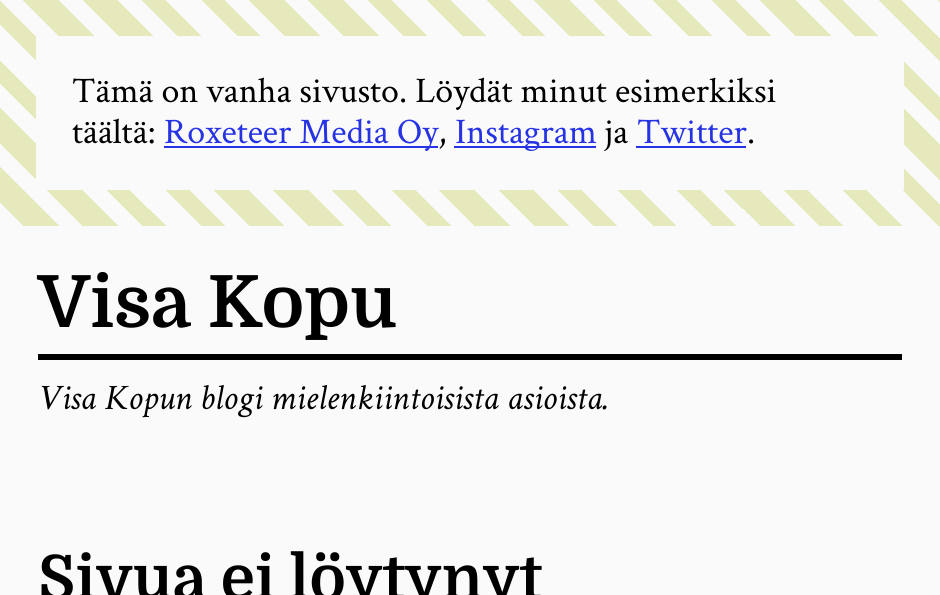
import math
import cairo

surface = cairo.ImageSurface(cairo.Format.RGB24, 940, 595)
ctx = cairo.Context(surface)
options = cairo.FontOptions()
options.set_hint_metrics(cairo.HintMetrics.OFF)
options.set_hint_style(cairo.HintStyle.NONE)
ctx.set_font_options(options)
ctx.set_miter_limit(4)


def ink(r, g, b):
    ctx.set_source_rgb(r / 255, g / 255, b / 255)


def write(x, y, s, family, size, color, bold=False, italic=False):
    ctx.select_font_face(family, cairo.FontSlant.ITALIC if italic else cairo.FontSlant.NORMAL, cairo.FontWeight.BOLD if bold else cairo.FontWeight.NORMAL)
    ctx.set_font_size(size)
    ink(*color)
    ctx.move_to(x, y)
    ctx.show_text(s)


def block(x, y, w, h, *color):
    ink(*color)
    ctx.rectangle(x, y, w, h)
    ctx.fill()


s1 = dict(family="Crimson Text", size=36, color=(0, 0, 0))
s2 = dict(family="Crimson Text", size=36, color=(38, 51, 228))
s3 = dict(family="Domine", size=72, color=(0, 0, 0), bold=True)
s4 = dict(family="Crimson Text", size=36, color=(0, 0, 0), italic=True)
s5 = dict(family="Domine", size=61.25, color=(0, 0, 0), bold=True)

ink(250, 250, 250)
ctx.paint()
gradient = cairo.LinearGradient(179, 405, 772, -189)
gradient.add_color_stop_rgba(0, 0.98, 0.98, 0.98, 1)
gradient.add_color_stop_rgba(0.02, 0.98, 0.98, 0.98, 1)
gradient.add_color_stop_rgba(0.02, 0.902, 0.914, 0.737, 1)
gradient.add_color_stop_rgba(0.05, 0.902, 0.914, 0.737, 1)
gradient.add_color_stop_rgba(0.05, 0.98, 0.98, 0.98, 1)
gradient.add_color_stop_rgba(0.07, 0.98, 0.98, 0.98, 1)
gradient.add_color_stop_rgba(0.07, 0.902, 0.914, 0.737, 1)
gradient.add_color_stop_rgba(0.1, 0.902, 0.914, 0.737, 1)
gradient.add_color_stop_rgba(0.1, 0.98, 0.98, 0.98, 1)
gradient.add_color_stop_rgba(0.12, 0.98, 0.98, 0.98, 1)
gradient.add_color_stop_rgba(0.12, 0.902, 0.914, 0.737, 1)
gradient.add_color_stop_rgba(0.14, 0.902, 0.914, 0.737, 1)
gradient.add_color_stop_rgba(0.14, 0.98, 0.98, 0.98, 1)
gradient.add_color_stop_rgba(0.17, 0.98, 0.98, 0.98, 1)
gradient.add_color_stop_rgba(0.17, 0.902, 0.914, 0.737, 1)
gradient.add_color_stop_rgba(0.19, 0.902, 0.914, 0.737, 1)
gradient.add_color_stop_rgba(0.19, 0.98, 0.98, 0.98, 1)
gradient.add_color_stop_rgba(0.21, 0.98, 0.98, 0.98, 1)
gradient.add_color_stop_rgba(0.21, 0.902, 0.914, 0.737, 1)
gradient.add_color_stop_rgba(0.24, 0.902, 0.914, 0.737, 1)
gradient.add_color_stop_rgba(0.24, 0.98, 0.98, 0.98, 1)
gradient.add_color_stop_rgba(0.26, 0.98, 0.98, 0.98, 1)
gradient.add_color_stop_rgba(0.26, 0.902, 0.914, 0.737, 1)
gradient.add_color_stop_rgba(0.29, 0.902, 0.914, 0.737, 1)
gradient.add_color_stop_rgba(0.29, 0.98, 0.98, 0.98, 1)
gradient.add_color_stop_rgba(0.31, 0.98, 0.98, 0.98, 1)
gradient.add_color_stop_rgba(0.31, 0.902, 0.914, 0.737, 1)
gradient.add_color_stop_rgba(0.33, 0.902, 0.914, 0.737, 1)
gradient.add_color_stop_rgba(0.33, 0.98, 0.98, 0.98, 1)
gradient.add_color_stop_rgba(0.36, 0.98, 0.98, 0.98, 1)
gradient.add_color_stop_rgba(0.36, 0.902, 0.914, 0.737, 1)
gradient.add_color_stop_rgba(0.38, 0.902, 0.914, 0.737, 1)
gradient.add_color_stop_rgba(0.38, 0.98, 0.98, 0.98, 1)
gradient.add_color_stop_rgba(0.4, 0.98, 0.98, 0.98, 1)
gradient.add_color_stop_rgba(0.4, 0.902, 0.914, 0.737, 1)
gradient.add_color_stop_rgba(0.43, 0.902, 0.914, 0.737, 1)
gradient.add_color_stop_rgba(0.43, 0.98, 0.98, 0.98, 1)
gradient.add_color_stop_rgba(0.45, 0.98, 0.98, 0.98, 1)
gradient.add_color_stop_rgba(0.45, 0.902, 0.914, 0.737, 1)
gradient.add_color_stop_rgba(0.48, 0.902, 0.914, 0.737, 1)
gradient.add_color_stop_rgba(0.48, 0.98, 0.98, 0.98, 1)
gradient.add_color_stop_rgba(0.5, 0.98, 0.98, 0.98, 1)
gradient.add_color_stop_rgba(0.5, 0.902, 0.914, 0.737, 1)
gradient.add_color_stop_rgba(0.52, 0.902, 0.914, 0.737, 1)
gradient.add_color_stop_rgba(0.52, 0.98, 0.98, 0.98, 1)
gradient.add_color_stop_rgba(0.55, 0.98, 0.98, 0.98, 1)
gradient.add_color_stop_rgba(0.55, 0.902, 0.914, 0.737, 1)
gradient.add_color_stop_rgba(0.57, 0.902, 0.914, 0.737, 1)
gradient.add_color_stop_rgba(0.57, 0.98, 0.98, 0.98, 1)
gradient.add_color_stop_rgba(0.6, 0.98, 0.98, 0.98, 1)
gradient.add_color_stop_rgba(0.6, 0.902, 0.914, 0.737, 1)
gradient.add_color_stop_rgba(0.62, 0.902, 0.914, 0.737, 1)
gradient.add_color_stop_rgba(0.62, 0.98, 0.98, 0.98, 1)
gradient.add_color_stop_rgba(0.64, 0.98, 0.98, 0.98, 1)
gradient.add_color_stop_rgba(0.64, 0.902, 0.914, 0.737, 1)
gradient.add_color_stop_rgba(0.67, 0.902, 0.914, 0.737, 1)
gradient.add_color_stop_rgba(0.67, 0.98, 0.98, 0.98, 1)
gradient.add_color_stop_rgba(0.69, 0.98, 0.98, 0.98, 1)
gradient.add_color_stop_rgba(0.69, 0.902, 0.914, 0.737, 1)
gradient.add_color_stop_rgba(0.71, 0.902, 0.914, 0.737, 1)
gradient.add_color_stop_rgba(0.71, 0.98, 0.98, 0.98, 1)
gradient.add_color_stop_rgba(0.74, 0.98, 0.98, 0.98, 1)
gradient.add_color_stop_rgba(0.74, 0.902, 0.914, 0.737, 1)
gradient.add_color_stop_rgba(0.76, 0.902, 0.914, 0.737, 1)
gradient.add_color_stop_rgba(0.76, 0.98, 0.98, 0.98, 1)
gradient.add_color_stop_rgba(0.79, 0.98, 0.98, 0.98, 1)
gradient.add_color_stop_rgba(0.79, 0.902, 0.914, 0.737, 1)
gradient.add_color_stop_rgba(0.81, 0.902, 0.914, 0.737, 1)
gradient.add_color_stop_rgba(0.81, 0.98, 0.98, 0.98, 1)
gradient.add_color_stop_rgba(0.83, 0.98, 0.98, 0.98, 1)
gradient.add_color_stop_rgba(0.83, 0.902, 0.914, 0.737, 1)
gradient.add_color_stop_rgba(0.86, 0.902, 0.914, 0.737, 1)
gradient.add_color_stop_rgba(0.86, 0.98, 0.98, 0.98, 1)
gradient.add_color_stop_rgba(0.88, 0.98, 0.98, 0.98, 1)
gradient.add_color_stop_rgba(0.88, 0.902, 0.914, 0.737, 1)
gradient.add_color_stop_rgba(0.9, 0.902, 0.914, 0.737, 1)
gradient.add_color_stop_rgba(0.9, 0.98, 0.98, 0.98, 1)
gradient.add_color_stop_rgba(0.93, 0.98, 0.98, 0.98, 1)
gradient.add_color_stop_rgba(0.93, 0.902, 0.914, 0.737, 1)
gradient.add_color_stop_rgba(0.95, 0.902, 0.914, 0.737, 1)
gradient.add_color_stop_rgba(0.95, 0.98, 0.98, 0.98, 1)
gradient.add_color_stop_rgba(0.98, 0.98, 0.98, 0.98, 1)
gradient.add_color_stop_rgba(0.98, 0.902, 0.914, 0.737, 1)
gradient.add_color_stop_rgba(1, 0.902, 0.914, 0.737, 1)
ctx.set_source(gradient)
ctx.rectangle(0, 0, 940, 226)
ctx.fill()
block(36, 36, 868, 154, 250, 250, 250)
write(72, 102, "Tämä on vanha sivusto. Löydät minut esimerkiksi", **s1)
write(72, 143, "täältä:", **s1)
block(164, 146, 274, 2, 38, 51, 228)
write(164, 143, "Roxeteer Media Oy", **s2)
write(438, 143, ",", **s1)
block(454, 146, 142, 2, 38, 51, 228)
write(455, 143, "Instagram", **s2)
write(604, 143, "ja", **s1)
write(637, 143, "Twitter", **s2)
block(636, 146, 110, 2, 38, 51, 228)
write(747, 143, ".", **s1)
block(38, 354, 864, 6, 0, 0, 0)
write(38, 327, "Visa Kopu", **s3)
write(38, 409, "Visa Kopun blogi mielenkiintoisista asioista.", **s4)
write(38, 599, "Sivua ei löytynyt", **s5)
surface.write_to_png("screenshot.png")
